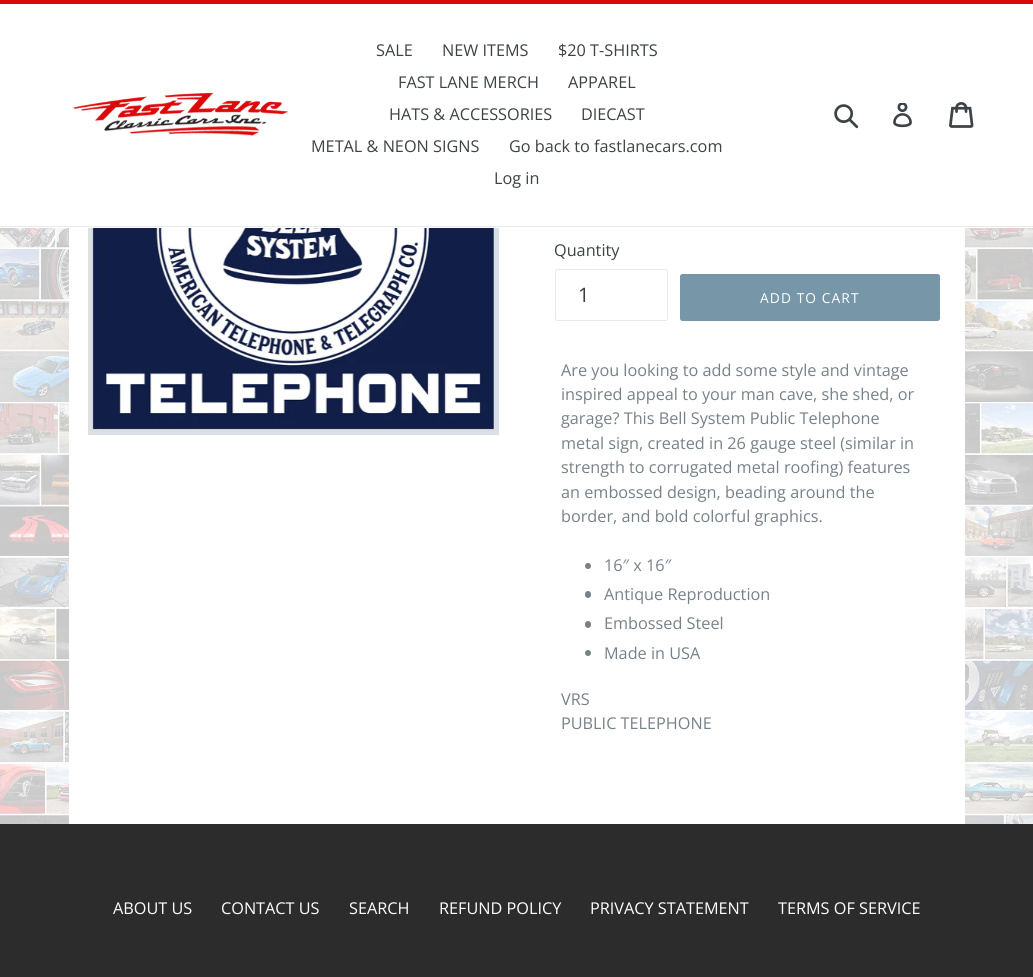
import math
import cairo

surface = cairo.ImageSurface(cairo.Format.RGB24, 1033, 977)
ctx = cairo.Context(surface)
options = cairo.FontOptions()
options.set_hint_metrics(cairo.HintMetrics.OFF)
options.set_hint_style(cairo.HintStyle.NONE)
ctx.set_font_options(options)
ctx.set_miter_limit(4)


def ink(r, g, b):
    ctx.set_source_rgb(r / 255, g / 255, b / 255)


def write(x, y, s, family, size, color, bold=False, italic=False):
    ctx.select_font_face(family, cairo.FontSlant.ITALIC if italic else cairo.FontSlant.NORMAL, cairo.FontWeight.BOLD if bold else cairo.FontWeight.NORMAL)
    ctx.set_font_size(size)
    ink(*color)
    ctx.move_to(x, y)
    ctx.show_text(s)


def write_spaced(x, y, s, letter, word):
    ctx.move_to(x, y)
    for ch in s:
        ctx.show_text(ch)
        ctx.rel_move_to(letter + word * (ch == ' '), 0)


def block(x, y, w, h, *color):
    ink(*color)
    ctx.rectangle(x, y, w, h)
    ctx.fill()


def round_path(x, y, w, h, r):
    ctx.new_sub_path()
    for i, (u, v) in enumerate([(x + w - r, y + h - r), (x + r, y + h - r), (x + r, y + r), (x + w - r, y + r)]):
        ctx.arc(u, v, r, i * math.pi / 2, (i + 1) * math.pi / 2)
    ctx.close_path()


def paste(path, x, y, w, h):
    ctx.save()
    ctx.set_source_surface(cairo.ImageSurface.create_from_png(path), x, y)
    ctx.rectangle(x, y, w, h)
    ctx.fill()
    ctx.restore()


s1 = dict(family="Open Sans", size=16.25, color=(61, 66, 70))
s2 = dict(family="Open Sans", size=20, color=(62, 59, 59))
s3 = dict(family="Open Sans", size=16.25, color=(120, 129, 136))
s4 = dict(family="Open Sans", size=16.25, color=(255, 255, 255))

ink(255, 255, 255)
ctx.paint()
paste("pic1.png", 0, 228, 1033, 596)
block(0, 0, 1033, 4, 220, 8, 8)
block(0, 226, 1033, 1, 232, 233, 235)
paste("pic2.png", 73, 92, 215, 44)
write(376, 56, "SALE", **s1)
write(442, 56, "NEW ITEMS", **s1)
write(558, 56, "$20 T-SHIRTS", **s1)
write(398, 88, "FAST LANE MERCH", **s1)
write(568, 88, "APPAREL", **s1)
write(389, 120, "HATS & ACCESSORIES", **s1)
write(581, 120, "DIECAST", **s1)
write(311, 152, "METAL & NEON SIGNS", **s1)
write(509, 152, "Go back to fastlanecars.com", **s1)
write(494, 184, "Log in", **s1)
paste("pic3.png", 834, 104, 25, 25)
paste("pic4.png", 893, 103, 19, 25)
paste("pic5.png", 949, 102, 25, 26)
block(69, 228, 896, 596, 255, 255, 255)
paste("pic6.png", 88, 228, 411, 207)
write(554, 256, "Quantity", **s1)
round_path(555.5, 269.5, 112, 51, 2)
ink(232, 233, 235)
ctx.set_line_width(1)
ctx.stroke()
write(578, 302, "1", **s2)
ink(119, 150, 168)
round_path(680, 274, 260, 47, 2.5)
ctx.fill()
ctx.set_font_size(13.75)
ink(255, 255, 255)
write_spaced(760, 303, "ADD TO CART", 1.1, 0)
write(561, 376, "Are you looking to add some style and vintage", **s3)
write(561, 400, "inspired appeal to your man cave, she shed, or", **s3)
write(561, 424, "garage? This Bell System Public Telephone", **s3)
write(561, 449, "metal sign, created in 26 gauge steel (similar in", **s3)
write(561, 473, "strength to corrugated metal roofing) features", **s3)
write(561, 498, "an embossed design, beading around the", **s3)
write(561, 522, "border, and bold colorful graphics.", **s3)
ctx.new_path()
ctx.arc(588, 566, 3, 0, 2 * math.pi)
ctx.fill()
write(604, 571, "16″ x 16″", **s3)
round_path(585, 591, 6, 7, 3)
ctx.fill()
write(604, 600, "Antique Reproduction", **s3)
round_path(585, 621, 6, 7, 3)
ctx.fill()
write(604, 629, "Embossed Steel", **s3)
ctx.new_path()
ctx.arc(588, 653, 3, 0, 2 * math.pi)
ctx.fill()
write(604, 659, "Made in USA", **s3)
write(561, 705, "VRS", **s3)
write(561, 729, "PUBLIC TELEPHONE", **s3)
block(0, 824, 1033, 153, 44, 44, 44)
write(113, 914, "ABOUT US", **s4)
write(221, 914, "CONTACT US", **s4)
write(349, 914, "SEARCH", **s4)
write(439, 914, "REFUND POLICY", **s4)
write(590, 914, "PRIVACY STATEMENT", **s4)
write(778, 914, "TERMS OF SERVICE", **s4)
surface.write_to_png("screenshot.png")
